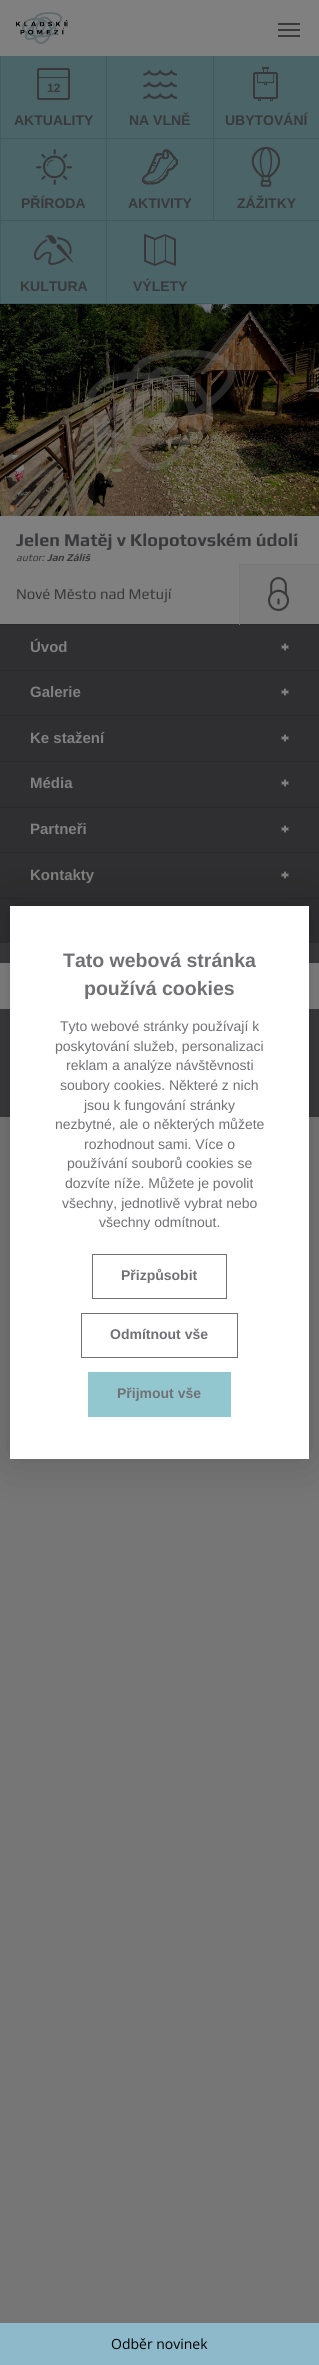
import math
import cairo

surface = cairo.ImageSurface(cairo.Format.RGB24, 319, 2365)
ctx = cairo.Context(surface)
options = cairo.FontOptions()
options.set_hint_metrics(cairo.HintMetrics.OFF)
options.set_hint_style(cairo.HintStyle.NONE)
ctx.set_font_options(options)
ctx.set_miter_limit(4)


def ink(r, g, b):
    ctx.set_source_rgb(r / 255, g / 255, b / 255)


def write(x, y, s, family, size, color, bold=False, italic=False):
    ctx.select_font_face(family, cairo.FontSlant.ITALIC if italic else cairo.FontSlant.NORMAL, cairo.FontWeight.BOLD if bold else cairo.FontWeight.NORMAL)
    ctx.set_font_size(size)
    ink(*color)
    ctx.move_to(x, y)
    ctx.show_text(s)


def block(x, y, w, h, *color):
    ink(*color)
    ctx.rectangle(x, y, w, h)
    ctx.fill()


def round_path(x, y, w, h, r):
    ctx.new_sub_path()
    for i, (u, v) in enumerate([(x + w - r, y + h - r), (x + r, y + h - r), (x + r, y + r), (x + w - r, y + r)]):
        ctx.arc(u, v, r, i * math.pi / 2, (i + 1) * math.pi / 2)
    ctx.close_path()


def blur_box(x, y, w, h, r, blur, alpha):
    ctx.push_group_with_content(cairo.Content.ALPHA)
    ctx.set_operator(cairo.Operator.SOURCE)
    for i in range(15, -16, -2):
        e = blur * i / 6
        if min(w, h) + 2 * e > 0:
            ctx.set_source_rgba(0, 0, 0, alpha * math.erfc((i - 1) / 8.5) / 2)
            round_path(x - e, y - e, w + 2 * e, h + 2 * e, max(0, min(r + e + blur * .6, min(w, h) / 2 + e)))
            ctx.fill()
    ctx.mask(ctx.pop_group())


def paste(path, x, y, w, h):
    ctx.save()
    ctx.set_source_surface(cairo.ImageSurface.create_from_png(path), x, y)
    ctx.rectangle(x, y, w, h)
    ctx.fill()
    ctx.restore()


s1 = dict(family="Arimo", size=12, color=(57, 56, 59), bold=True)
s2 = dict(family="Arimo", size=14, color=(57, 56, 59), bold=True)
s3 = dict(family="Play", size=18, color=(57, 56, 59), bold=True)
s4 = dict(family="Play", size=10.5, color=(57, 56, 59), italic=True)
s5 = dict(family="Play", size=10.5, color=(57, 56, 59), bold=True, italic=True)
s6 = dict(family="Play", size=15, color=(57, 56, 59))
s7 = dict(family="Arimo", size=15, color=(128, 128, 128), bold=True)
s8 = dict(family="Arimo", size=19.5, color=(113, 112, 117), bold=True)
s9 = dict(family="Arimo", size=14, color=(113, 112, 117))
s10 = dict(family="Arimo", size=14, color=(113, 112, 117), bold=True)
s11 = dict(family="Open Sans", size=14, color=(0, 0, 0))

ink(118, 118, 118)
ctx.paint()
block(0, 0, 319, 56, 128, 128, 128)
paste("pic1.png", 16, 12, 52, 32)
block(278, 23, 22, 2, 57, 56, 59)
block(278, 29, 22, 2, 57, 56, 59)
block(278, 35, 22, 2, 57, 56, 59)
block(1, 56, 318, 248, 74, 100, 104)
block(0, 138, 319, 1, 64, 90, 94)
block(0, 56, 1, 83, 64, 90, 94)
paste("pic2.png", 37, 68, 33, 32)
write(47, 92, "12", **s1)
write(14, 125, "AKTUALITY", **s2)
block(106, 56, 1, 83, 64, 90, 94)
paste("pic3.png", 143, 69, 34, 30)
write(129, 125, "NA VLNĚ", **s2)
block(213, 56, 1, 83, 64, 90, 94)
paste("pic4.png", 253, 67, 25, 34)
write(225, 125, "UBYTOVÁNÍ", **s2)
block(0, 220, 319, 1, 64, 90, 94)
block(0, 139, 1, 82, 64, 90, 94)
paste("pic5.png", 36, 149, 36, 36)
write(21, 208, "PŘÍRODA", **s2)
block(106, 139, 1, 82, 64, 90, 94)
paste("pic6.png", 142, 149, 36, 36)
write(128, 208, "AKTIVITY", **s2)
block(213, 139, 1, 82, 64, 90, 94)
paste("pic7.png", 251, 147, 29, 40)
write(237, 208, "ZÁŽITKY", **s2)
block(0, 303, 213, 1, 64, 90, 94)
block(0, 221, 1, 83, 64, 90, 94)
paste("pic8.png", 34, 235, 39, 30)
write(20, 291, "KULTURA", **s2)
block(106, 221, 1, 83, 64, 90, 94)
paste("pic9.png", 144, 234, 32, 32)
write(133, 291, "VÝLETY", **s2)
paste("pic10.png", 0, 304, 319, 212)
block(0, 516, 319, 108, 128, 128, 128)
write(16, 546, "Jelen Matěj v Klopotovském údolí", **s3)
write(16, 561, "autor:", **s4)
write(47, 561, "Jan Záliš", **s5)
write(16, 599, "Nové Město nad Metují", **s6)
block(240, 565, 79, 59, 124, 124, 124)
paste("pic11.png", 268, 577, 21, 34)
block(239, 564, 80, 1, 119, 119, 119)
block(0, 624, 319, 1, 42, 41, 43)
block(239, 564, 1, 61, 119, 119, 119)
block(0, 943, 319, 174, 57, 56, 59)
block(0, 963, 10, 46, 128, 128, 128)
block(309, 963, 10, 46, 128, 128, 128)
block(0, 625, 319, 318, 47, 46, 48)
write(30, 652, "Úvod", **s7)
ctx.rectangle(281.5, 645.5, 7, 3)
ctx.fill_preserve()
ink(78, 78, 78)
ctx.set_line_width(1)
ctx.stroke()
block(284, 644, 2, 6, 128, 128, 128)
block(284, 643, 2, 1, 78, 78, 78)
block(284, 650, 2, 1, 78, 78, 78)
block(0, 670, 319, 1, 42, 41, 43)
write(30, 697, "Galerie", **s7)
ctx.rectangle(281.5, 690.5, 7, 3)
ctx.fill_preserve()
ink(78, 78, 78)
ctx.stroke()
block(284, 689, 2, 6, 128, 128, 128)
block(284, 688, 2, 1, 78, 78, 78)
block(284, 695, 2, 1, 78, 78, 78)
block(0, 715, 319, 1, 42, 41, 43)
write(30, 743, "Ke stažení", **s7)
ctx.rectangle(281.5, 736.5, 7, 3)
ctx.fill_preserve()
ink(78, 78, 78)
ctx.stroke()
block(284, 735, 2, 6, 128, 128, 128)
block(284, 734, 2, 1, 78, 78, 78)
block(284, 741, 2, 1, 78, 78, 78)
block(0, 761, 319, 1, 42, 41, 43)
write(30, 788, "Média", **s7)
ctx.rectangle(281.5, 781.5, 7, 3)
ctx.fill_preserve()
ink(78, 78, 78)
ctx.stroke()
block(284, 780, 2, 6, 128, 128, 128)
block(284, 779, 2, 1, 78, 78, 78)
block(284, 786, 2, 1, 78, 78, 78)
block(0, 807, 319, 1, 42, 41, 43)
write(30, 834, "Partneři", **s7)
ctx.rectangle(281.5, 827.5, 7, 3)
ctx.fill_preserve()
ink(78, 78, 78)
ctx.stroke()
block(284, 826, 2, 6, 128, 128, 128)
block(284, 825, 2, 1, 78, 78, 78)
block(284, 832, 2, 1, 78, 78, 78)
block(0, 852, 319, 1, 42, 41, 43)
write(30, 880, "Kontakty", **s7)
ctx.rectangle(281.5, 873.5, 7, 3)
ctx.fill_preserve()
ink(78, 78, 78)
ctx.stroke()
block(284, 872, 2, 6, 128, 128, 128)
block(284, 871, 2, 1, 78, 78, 78)
block(284, 878, 2, 1, 78, 78, 78)
block(0, 898, 319, 1, 42, 41, 43)
ink(0, 0, 0)
blur_box(10, 906, 299, 553, 0, 25, 0.2)
block(10, 906, 299, 553, 255, 255, 255)
write(63, 967, "Tato webová stránka", **s8)
write(84, 995, "používá cookies", **s8)
write(60, 1031, "Tyto webové stránky používají k", **s9)
write(55, 1051, "poskytování služeb, personalizaci", **s9)
write(66, 1070, "reklam a analýze návštěvnosti", **s9)
write(60, 1090, "soubory cookies. Některé z nich", **s9)
write(84, 1110, "jsou k fungování stránky", **s9)
write(55, 1129, "nezbytné, ale o některých můžete", **s9)
write(84, 1149, "rozhodnout sami. Více o", **s9)
write(67, 1168, "používání souborů cookies se", **s9)
write(65, 1188, "dozvíte níže. Můžete je povolit", **s9)
write(62, 1208, "všechny, jednotlivě vybrat nebo", **s9)
write(99, 1227, "všechny odmítnout.", **s9)
ctx.rectangle(92.5, 1254.5, 134, 44)
ctx.stroke()
write(121, 1280, "Přizpůsobit", **s10)
ctx.rectangle(81.5, 1313.5, 156, 44)
ctx.stroke()
write(110, 1339, "Odmítnout vše", **s10)
block(88, 1372, 143, 45, 147, 199, 207)
write(117, 1398, "Přijmout vše", **s10)
block(0, 2323, 319, 42, 141, 185, 202)
write(111, 2349, "Odběr novinek", **s11)
surface.write_to_png("screenshot.png")
